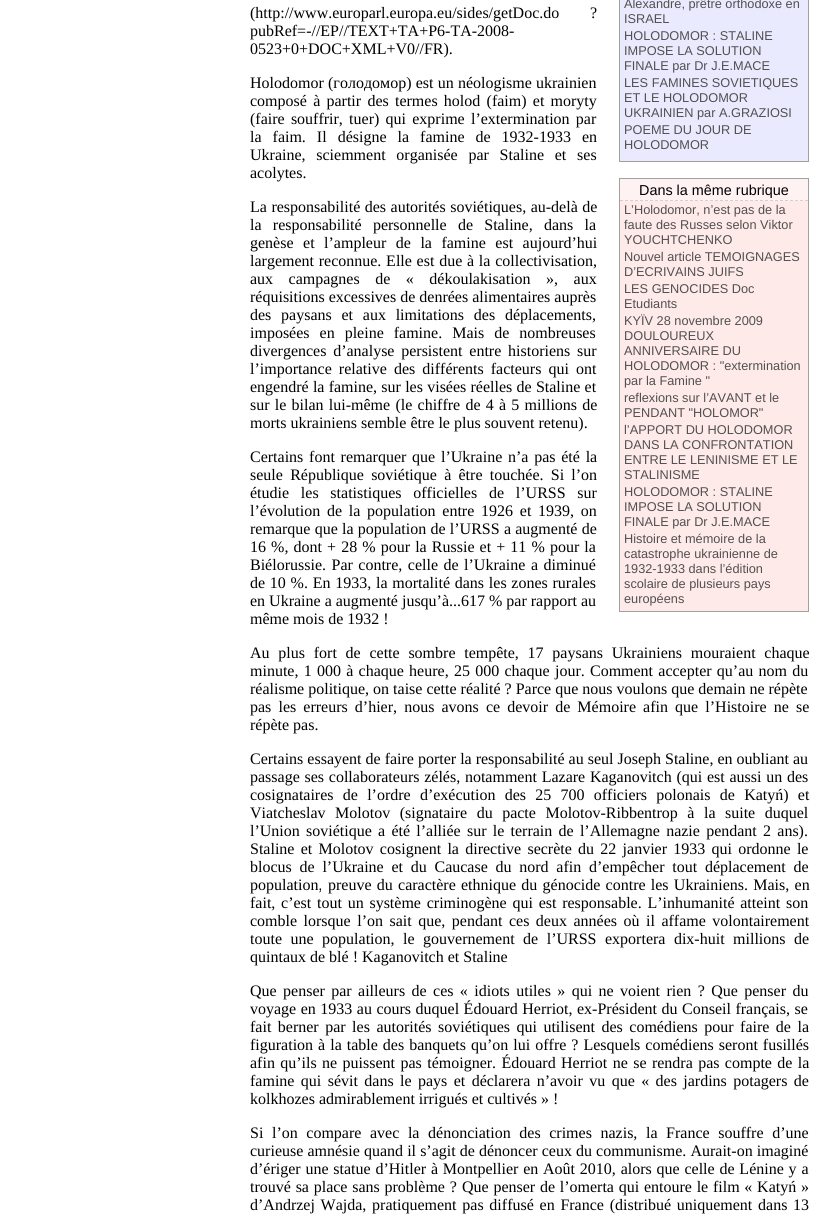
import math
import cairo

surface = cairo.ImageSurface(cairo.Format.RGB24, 834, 1214)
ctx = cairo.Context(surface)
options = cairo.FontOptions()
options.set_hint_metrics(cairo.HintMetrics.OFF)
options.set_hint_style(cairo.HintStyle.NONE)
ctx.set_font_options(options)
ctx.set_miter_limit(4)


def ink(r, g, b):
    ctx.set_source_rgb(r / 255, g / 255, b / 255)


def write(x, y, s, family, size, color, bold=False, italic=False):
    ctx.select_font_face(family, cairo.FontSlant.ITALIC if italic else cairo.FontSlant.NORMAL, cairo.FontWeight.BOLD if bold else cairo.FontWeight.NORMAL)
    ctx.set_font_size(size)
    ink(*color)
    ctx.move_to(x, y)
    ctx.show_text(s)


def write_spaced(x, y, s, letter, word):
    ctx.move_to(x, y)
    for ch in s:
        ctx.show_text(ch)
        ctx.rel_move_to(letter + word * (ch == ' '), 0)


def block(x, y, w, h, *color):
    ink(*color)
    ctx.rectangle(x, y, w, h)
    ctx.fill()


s1 = dict(family="Liberation Sans", size=12.75, color=(80, 80, 80))
s2 = dict(family="Liberation Sans", size=14.4, color=(0, 0, 0))
s3 = dict(family="Liberation Serif", size=16, color=(0, 0, 0))

ink(255, 255, 255)
ctx.paint()
block(808, 0, 1, 162, 160, 160, 160)
block(619, 161, 190, 1, 160, 160, 160)
block(619, 0, 1, 162, 160, 160, 160)
block(620, 0, 188, 161, 234, 234, 255)
write(624, 8, "Alexandre, prêtre orthodoxe en", **s1)
write(624, 23, "ISRAEL", **s1)
write(624, 40, "HOLODOMOR : STALINE", **s1)
write(624, 55, "IMPOSE LA SOLUTION", **s1)
write(624, 70, "FINALE par Dr J.E.MACE", **s1)
write(624, 87, "LES FAMINES SOVIETIQUES", **s1)
write(624, 102, "ET LE HOLODOMOR", **s1)
write(624, 117, "UKRAINIEN par A.GRAZIOSI", **s1)
write(624, 134, "POEME DU JOUR DE", **s1)
write(624, 149, "HOLODOMOR", **s1)
block(808, 178, 1, 434, 160, 160, 160)
block(619, 611, 190, 1, 160, 160, 160)
block(619, 178, 1, 434, 160, 160, 160)
block(620, 201, 188, 410, 255, 234, 234)
block(620, 179, 188, 22, 255, 242, 242)
block(620, 178, 188, 1, 160, 160, 160)
ctx.new_path()
ctx.move_to(620, 200.5)
ctx.line_to(808, 200.5)
ink(208, 208, 208)
ctx.set_line_width(1)
ctx.set_dash([3, 2])
ctx.stroke()
write(639, 195, "Dans la même rubrique", **s2)
write(624, 214, "L’Holodomor, n’est pas de la", **s1)
write(624, 229, "faute des Russes selon Viktor", **s1)
write(624, 244, "YOUCHTCHENKO", **s1)
write(624, 261, "Nouvel article TEMOIGNAGES", **s1)
write(624, 276, "D’ECRIVAINS JUIFS", **s1)
write(624, 293, "LES GENOCIDES Doc", **s1)
write(624, 308, "Etudiants", **s1)
write(624, 325, "KYÏV 28 novembre 2009", **s1)
write(624, 340, "DOULOUREUX", **s1)
write(624, 355, "ANNIVERSAIRE DU", **s1)
write(624, 370, "HOLODOMOR : \"extermination", **s1)
write(624, 385, "par la Famine \"", **s1)
write(624, 402, "reflexions sur l’AVANT et le", **s1)
write(624, 417, "PENDANT \"HOLOMOR\"", **s1)
write(624, 434, "l’APPORT DU HOLODOMOR", **s1)
write(624, 449, "DANS LA CONFRONTATION", **s1)
write(624, 464, "ENTRE LE LENINISME ET LE", **s1)
write(624, 479, "STALINISME", **s1)
write(624, 496, "HOLODOMOR : STALINE", **s1)
write(624, 511, "IMPOSE LA SOLUTION", **s1)
write(624, 526, "FINALE par Dr J.E.MACE", **s1)
write(624, 543, "Histoire et mémoire de la", **s1)
write(624, 558, "catastrophe ukrainienne de", **s1)
write(624, 573, "1932-1933 dans l’édition", **s1)
write(624, 588, "scolaire de plusieurs pays", **s1)
write(624, 603, "européens", **s1)
write(250, 18, "(http://www.europarl.europa.eu/sides/getDoc.do", **s3)
write(590, 18, "?", **s3)
write(250, 36, "pubRef=-//EP//TEXT+TA+P6-TA-2008-", **s3)
write(250, 54, "0523+0+DOC+XML+V0//FR).", **s3)
write_spaced(250, 88, "Holodomor (голодомор) est un néologisme ukrainien", 0, 0.25)
write_spaced(250, 106, "composé à partir des termes holod (faim) et moryty", 0, 2.25)
write_spaced(250, 124, "(faire souffrir, tuer) qui exprime l’extermination par", 0, 2.25)
write_spaced(250, 142, "la faim. Il désigne la famine de 1932-1933 en", 0, 7)
write_spaced(250, 160, "Ukraine, sciemment organisée par Staline et ses", 0, 6.75)
write(250, 178, "acolytes.", **s3)
write_spaced(250, 212, "La responsabilité des autorités soviétiques, au-delà de", 0, 0.5)
write_spaced(250, 230, "la responsabilité personnelle de Staline, dans la", 0, 7.25)
write_spaced(250, 248, "genèse et l’ampleur de la famine est aujourd’hui", 0, 5.5)
write_spaced(250, 266, "largement reconnue. Elle est due à la collectivisation,", 0, 0.75)
write_spaced(250, 284, "aux campagnes de « dékoulakisation », aux", 0, 11.5)
write(250, 302, "réquisitions excessives de denrées alimentaires auprès", **s3)
write_spaced(250, 320, "des paysans et aux limitations des déplacements,", 0, 5.75)
write_spaced(250, 338, "imposées en pleine famine. Mais de nombreuses", 0, 6)
write_spaced(250, 356, "divergences d’analyse persistent entre historiens sur", 0, 2.75)
write_spaced(250, 374, "l’importance relative des différents facteurs qui ont", 0, 3.1)
write_spaced(250, 392, "engendré la famine, sur les visées réelles de Staline et", 0, 0.25)
write_spaced(250, 410, "sur le bilan lui-même (le chiffre de 4 à 5 millions de", 0, 1.25)
write(250, 428, "morts ukrainiens semble être le plus souvent retenu).", **s3)
write_spaced(250, 462, "Certains font remarquer que l’Ukraine n’a pas été la", 0, 1.75)
write_spaced(250, 480, "seule République soviétique à être touchée. Si l’on", 0, 3.25)
write_spaced(250, 498, "étudie les statistiques officielles de l’URSS sur", 0, 7.75)
write_spaced(250, 516, "l’évolution de la population entre 1926 et 1939, on", 0, 2.75)
write_spaced(250, 534, "remarque que la population de l’URSS a augmenté de", 0, 0.25)
write_spaced(250, 552, "16 %, dont + 28 % pour la Russie et + 11 % pour la", 0, 1.1)
write_spaced(250, 570, "Biélorussie. Par contre, celle de l’Ukraine a diminué", 0, 1.5)
write_spaced(250, 588, "de 10 %. En 1933, la mortalité dans les zones rurales", 0, 0.75)
write(250, 606, "en Ukraine a augmenté jusqu’à...617 % par rapport au", **s3)
write(250, 624, "même mois de 1932 !", **s3)
write_spaced(250, 658, "Au plus fort de cette sombre tempête, 17 paysans Ukrainiens mouraient chaque", 0, 4.75)
write_spaced(250, 676, "minute, 1 000 à chaque heure, 25 000 chaque jour. Comment accepter qu’au nom du", 0, 1.25)
write(250, 694, "réalisme politique, on taise cette réalité ? Parce que nous voulons que demain ne répète", **s3)
write_spaced(250, 712, "pas les erreurs d’hier, nous avons ce devoir de Mémoire afin que l’Histoire ne se", 0, 3.1)
write(250, 730, "répète pas.", **s3)
write(250, 764, "Certains essayent de faire porter la responsabilité au seul Joseph Staline, en oubliant au", **s3)
write_spaced(250, 782, "passage ses collaborateurs zélés, notamment Lazare Kaganovitch (qui est aussi un des", 0, 0.75)
write_spaced(250, 800, "cosignataires de l’ordre d’exécution des 25 700 officiers polonais de Katyń) et", 0, 5.25)
write_spaced(250, 818, "Viatcheslav Molotov (signataire du pacte Molotov-Ribbentrop à la suite duquel", 0, 5.5)
write_spaced(250, 836, "l’Union soviétique a été l’alliée sur le terrain de l’Allemagne nazie pendant 2 ans).", 0, 2.25)
write_spaced(250, 854, "Staline et Molotov cosignent la directive secrète du 22 janvier 1933 qui ordonne le", 0, 2.25)
write_spaced(250, 872, "blocus de l’Ukraine et du Caucase du nord afin d’empêcher tout déplacement de", 0, 3.75)
write(250, 890, "population,", **s3)
write_spaced(328, 890, "preuve du caractère ethnique du génocide contre les Ukrainiens. Mais, en", 0, 1.25)
write_spaced(250, 908, "fait, c’est tout un système criminogène qui est responsable. L’inhumanité atteint son", 0, 1.75)
write_spaced(250, 926, "comble lorsque l’on sait que, pendant ces deux années où il affame volontairement", 0, 2.5)
write_spaced(250, 944, "toute une population, le gouvernement de l’URSS exportera dix-huit millions de", 0, 4.5)
write(250, 962, "quintaux de blé ! Kaganovitch et Staline", **s3)
write_spaced(250, 996, "Que penser par ailleurs de ces « idiots utiles » qui ne voient rien ? Que penser du", 0, 2.4)
write_spaced(250, 1014, "voyage en 1933 au cours duquel Édouard Herriot, ex-Président du Conseil français, se", 0, 0.5)
write_spaced(250, 1032, "fait berner par les autorités soviétiques qui utilisent des comédiens pour faire de la", 0, 2.5)
write_spaced(250, 1050, "figuration à la table des banquets qu’on lui offre ? Lesquels comédiens seront fusillés", 0, 1)
write_spaced(250, 1068, "afin qu’ils ne puissent pas témoigner. Édouard Herriot ne se rendra pas compte de la", 0, 1.4)
write_spaced(250, 1086, "famine qui sévit dans le pays et déclarera n’avoir vu que « des jardins potagers de", 0, 2.4)
write(250, 1104, "kolkhozes admirablement irrigués et cultivés » !", **s3)
write_spaced(250, 1138, "Si l’on compare avec la dénonciation des crimes nazis, la France souffre d’une", 0, 4.6)
write_spaced(250, 1156, "curieuse amnésie quand il s’agit de dénoncer ceux du communisme. Aurait-on imaginé", 0, 0.1)
write_spaced(250, 1174, "d’ériger une statue d’Hitler à Montpellier en Août 2010, alors que celle de Lénine y a", 0, 0.8)
write_spaced(250, 1192, "trouvé sa place sans problème ?", 0, 0.75)
write_spaced(462, 1192, "Que penser de l’omerta qui entoure le film « Katyń »", 0, 0.75)
write_spaced(250, 1210, "d’Andrzej Wajda, pratiquement pas diffusé en France (distribué uniquement dans 13", 0, 1.75)
surface.write_to_png("screenshot.png")
